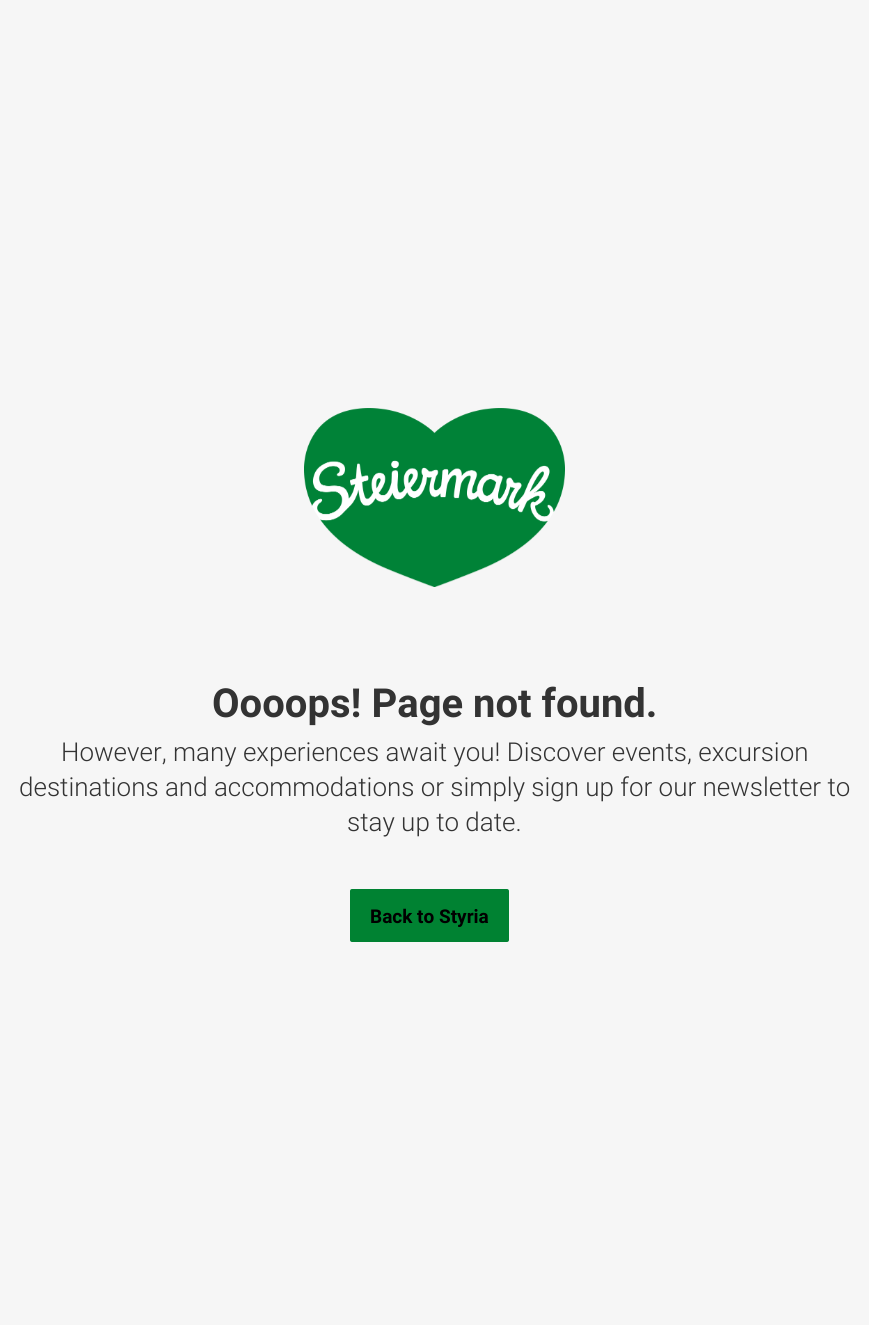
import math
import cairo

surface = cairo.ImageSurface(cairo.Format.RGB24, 869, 1325)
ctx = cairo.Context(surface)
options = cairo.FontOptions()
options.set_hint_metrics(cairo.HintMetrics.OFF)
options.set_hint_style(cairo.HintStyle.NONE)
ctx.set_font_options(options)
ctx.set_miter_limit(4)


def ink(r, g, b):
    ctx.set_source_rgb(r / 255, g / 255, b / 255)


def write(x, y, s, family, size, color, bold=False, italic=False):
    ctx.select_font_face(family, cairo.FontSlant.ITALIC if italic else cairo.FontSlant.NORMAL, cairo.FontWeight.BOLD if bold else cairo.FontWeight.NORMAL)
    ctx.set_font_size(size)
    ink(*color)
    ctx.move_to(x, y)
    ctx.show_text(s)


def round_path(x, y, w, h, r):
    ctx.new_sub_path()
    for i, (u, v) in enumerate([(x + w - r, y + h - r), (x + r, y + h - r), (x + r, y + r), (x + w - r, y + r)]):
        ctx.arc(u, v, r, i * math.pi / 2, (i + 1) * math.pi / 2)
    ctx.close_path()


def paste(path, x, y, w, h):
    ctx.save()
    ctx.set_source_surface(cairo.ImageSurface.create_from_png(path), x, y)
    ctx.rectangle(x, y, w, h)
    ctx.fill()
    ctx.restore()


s1 = dict(family="Roboto", size=40, color=(51, 51, 51), bold=True)
s2 = dict(family="Roboto Light", size=26, color=(51, 51, 51))
s3 = dict(family="Roboto", size=19, color=(0, 0, 0), bold=True)

ink(246, 246, 246)
ctx.paint()
paste("pic1.png", 304, 408, 261, 179)
write(212, 717, "Oooops! Page not found.", **s1)
write(61, 761, "However, many experiences await you! Discover events, excursion", **s2)
write(19, 796, "destinations and accommodations or simply sign up for our newsletter to", **s2)
write(347, 831, "stay up to date.", **s2)
ink(0, 130, 50)
round_path(350, 889, 159, 53, 2)
ctx.fill()
write(370, 923, "Back to Styria", **s3)
surface.write_to_png("screenshot.png")
